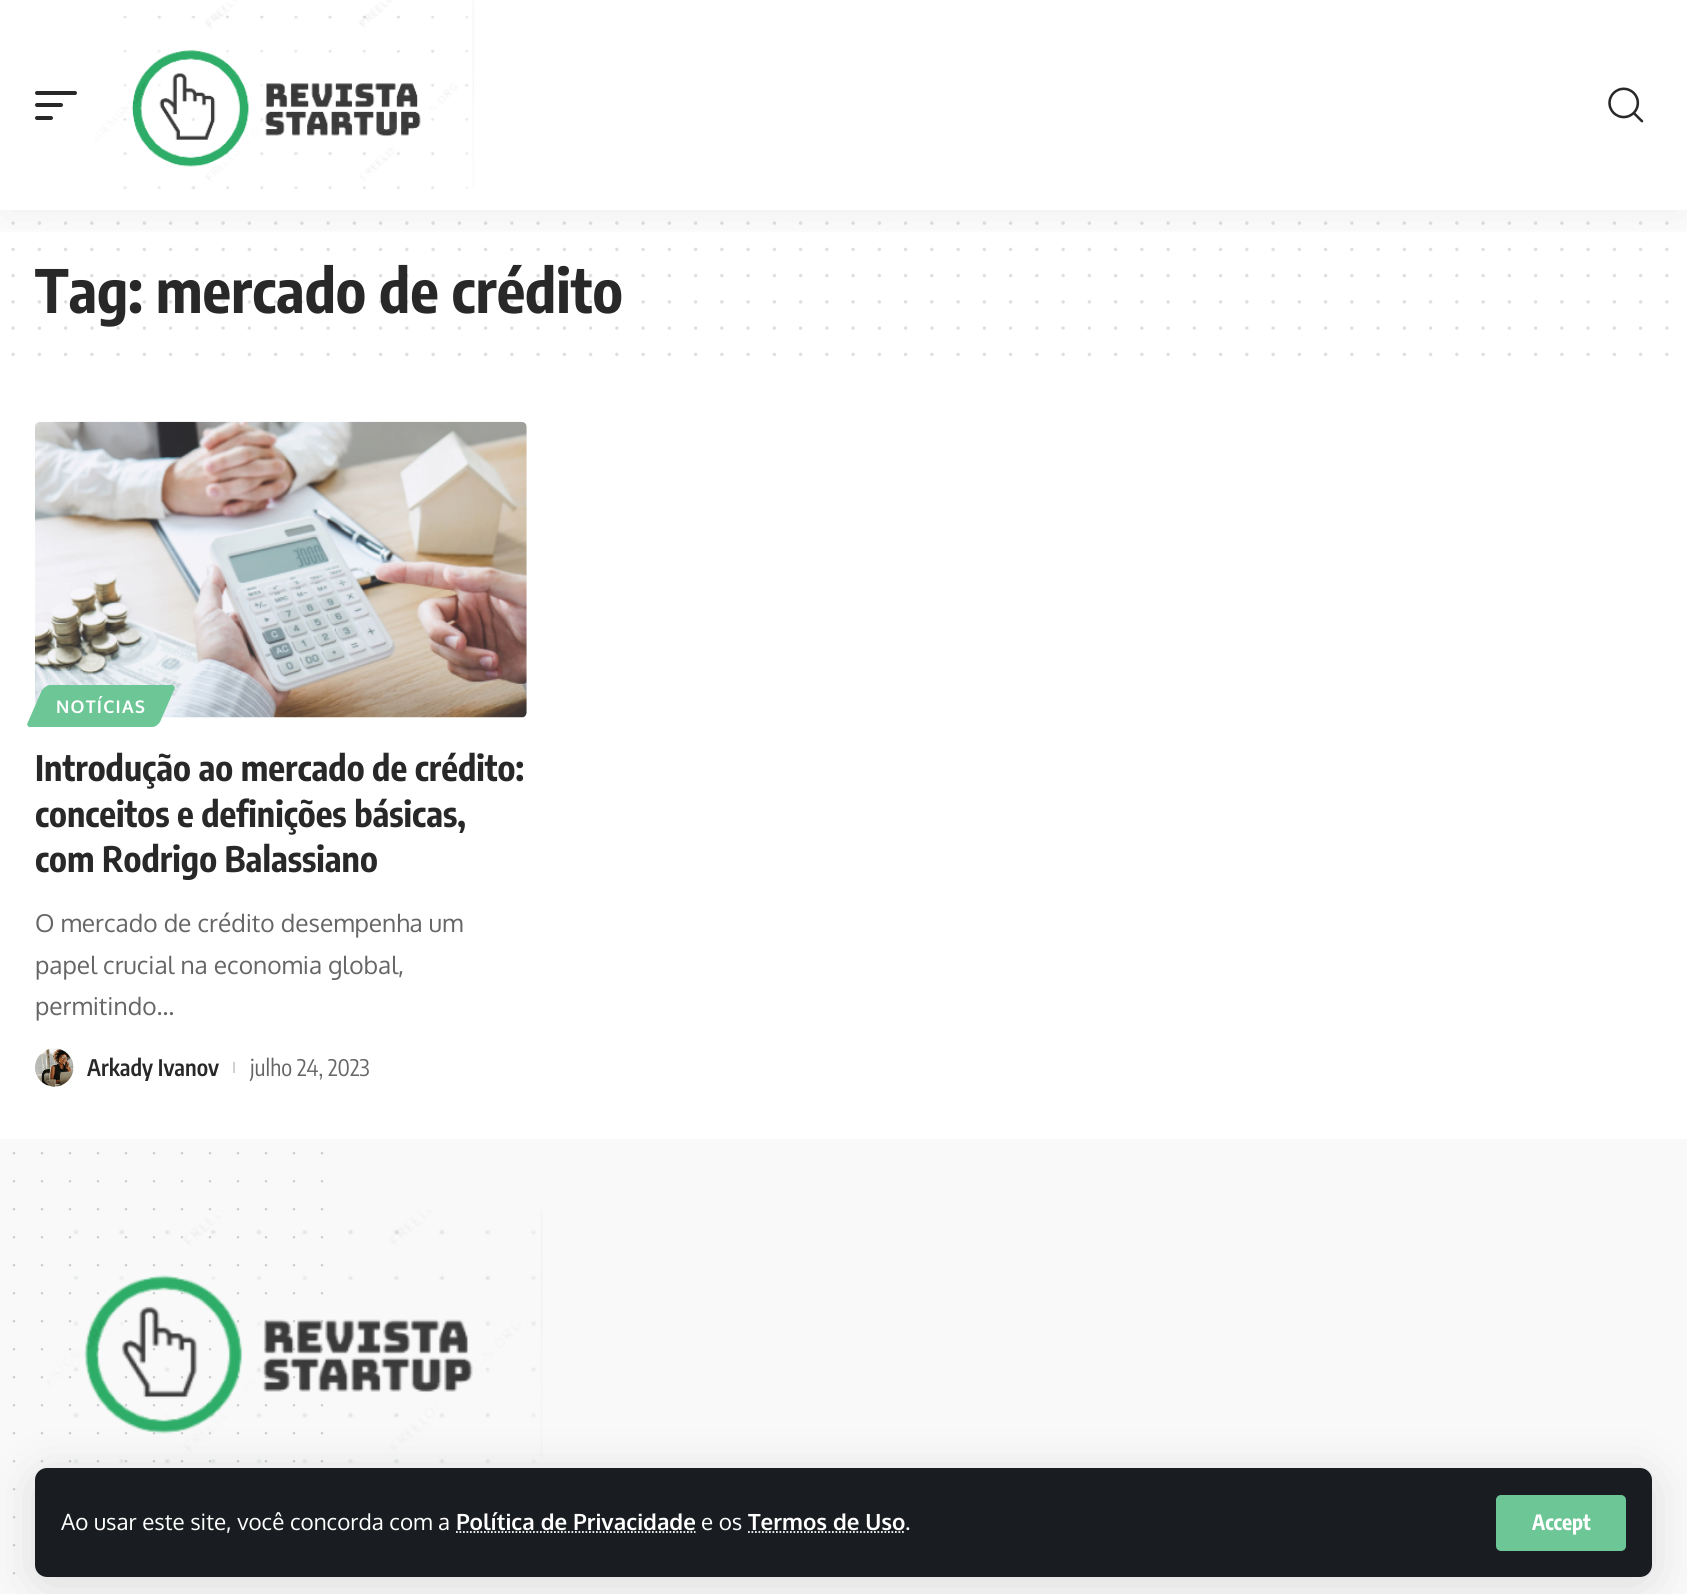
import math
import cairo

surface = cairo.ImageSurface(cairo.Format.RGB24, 1687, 1594)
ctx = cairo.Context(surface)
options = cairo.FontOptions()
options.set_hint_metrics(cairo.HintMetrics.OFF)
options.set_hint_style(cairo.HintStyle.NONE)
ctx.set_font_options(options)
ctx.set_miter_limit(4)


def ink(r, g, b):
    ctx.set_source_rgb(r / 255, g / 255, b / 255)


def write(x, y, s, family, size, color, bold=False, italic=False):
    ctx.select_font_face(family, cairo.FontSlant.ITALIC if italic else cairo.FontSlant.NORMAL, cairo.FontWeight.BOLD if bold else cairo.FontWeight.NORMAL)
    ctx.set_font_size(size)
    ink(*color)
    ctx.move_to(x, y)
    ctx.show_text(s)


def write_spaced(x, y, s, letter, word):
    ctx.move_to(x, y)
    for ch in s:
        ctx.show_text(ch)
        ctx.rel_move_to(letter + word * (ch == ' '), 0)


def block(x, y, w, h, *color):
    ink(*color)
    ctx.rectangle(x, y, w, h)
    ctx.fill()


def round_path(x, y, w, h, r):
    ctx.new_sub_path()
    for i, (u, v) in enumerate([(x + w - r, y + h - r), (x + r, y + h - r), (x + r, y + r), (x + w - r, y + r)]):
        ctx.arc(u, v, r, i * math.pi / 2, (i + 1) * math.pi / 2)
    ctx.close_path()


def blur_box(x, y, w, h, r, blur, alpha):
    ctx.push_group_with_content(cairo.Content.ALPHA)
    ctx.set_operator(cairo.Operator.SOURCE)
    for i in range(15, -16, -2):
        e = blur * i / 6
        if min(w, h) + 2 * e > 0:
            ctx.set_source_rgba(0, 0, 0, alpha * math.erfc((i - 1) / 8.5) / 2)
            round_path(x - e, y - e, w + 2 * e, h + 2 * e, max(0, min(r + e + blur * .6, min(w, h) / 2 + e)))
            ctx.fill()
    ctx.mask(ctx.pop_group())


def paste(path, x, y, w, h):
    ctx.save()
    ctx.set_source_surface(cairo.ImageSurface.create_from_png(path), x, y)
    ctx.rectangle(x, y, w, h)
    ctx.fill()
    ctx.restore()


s1 = dict(family="Encode Sans Condensed", size=59.5, color=(40, 40, 40), bold=True)
s2 = dict(family="Encode Sans Condensed", size=35, color=(40, 40, 40), bold=True)
s3 = dict(family="Oxygen", size=24.5, color=(102, 102, 102))
s4 = dict(family="Encode Sans Condensed SemiBold", size=22.75, color=(40, 40, 40))
s5 = dict(family="Encode Sans Condensed", size=22.75, color=(102, 102, 102))
s6 = dict(family="Oxygen", size=22.4, color=(255, 255, 255))
s7 = dict(family="Oxygen", size=22.4, color=(255, 255, 255), bold=True)
s8 = dict(family="Encode Sans Condensed", size=21, color=(255, 255, 255), bold=True)

ink(255, 255, 255)
ctx.paint()
ctx.new_path()
ctx.move_to(13.1, 223.1)
ctx.line_to(1667.2, 223.1)
ink(223, 223, 223)
ctx.set_line_width(3.5)
ctx.set_line_cap(cairo.LineCap.ROUND)
ctx.set_dash([0, 26.25])
ctx.stroke()
ctx.new_path()
ctx.move_to(13.1, 249.4)
ctx.line_to(1667.2, 249.4)
ctx.stroke()
write(35, 313, "Tag: mercado de crédito", **s1)
ctx.new_path()
ctx.move_to(13.1, 275.6)
ctx.line_to(1667.2, 275.6)
ctx.set_source_rgba(0.157, 0.157, 0.157, 0.15)
ctx.stroke()
ctx.new_path()
ctx.move_to(13.1, 301.9)
ctx.line_to(1667.2, 301.9)
ctx.stroke()
ctx.new_path()
ctx.move_to(13.1, 328.1)
ctx.line_to(1667.2, 328.1)
ink(223, 223, 223)
ctx.stroke()
ctx.new_path()
ctx.move_to(13.1, 354.4)
ctx.line_to(1667.2, 354.4)
ctx.stroke()
paste("pic1.png", 35, 421, 492, 297)
ink(108, 198, 149)
ctx.new_path()
ctx.move_to(50, 685)
ctx.line_to(172, 685)
ctx.curve_to(174, 685, 176, 688, 174, 690)
ctx.line_to(160, 722)
ctx.curve_to(158, 725, 155, 727, 152, 727)
ctx.line_to(30, 727)
ctx.curve_to(28, 727, 26, 725, 28, 722)
ctx.line_to(42, 690)
ctx.curve_to(44, 688, 47, 685, 50, 685)
ctx.close_path()
ctx.fill()
ctx.select_font_face("Oxygen", cairo.FontSlant.NORMAL, cairo.FontWeight.BOLD)
ctx.set_font_size(17.5)
ink(255, 255, 255)
write_spaced(56, 713, "NOTÍCIAS", 1.25, 0)
write(35, 781, "Introdução ao mercado de crédito:", **s2)
write(35, 827, "conceitos e definições básicas,", **s2)
write(35, 872, "com Rodrigo Balassiano", **s2)
write(35, 932, "O mercado de crédito desempenha um", **s3)
write(35, 974, "papel crucial na economia global,", **s3)
write(35, 1015, "permitindo…", **s3)
paste("pic2.png", 35, 1048, 39, 39)
write(87, 1076, "Arkady Ivanov", **s4)
block(233, 1062, 2, 11, 209, 209, 209)
write(250, 1076, "julho 24, 2023", **s5)
block(0, 1139, 1687, 455, 249, 249, 249)
ctx.new_path()
ctx.move_to(70, 1153.2)
ctx.line_to(70, 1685.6)
ink(207, 207, 207)
ctx.set_line_width(2.6)
ctx.set_dash([0, 28])
ctx.stroke()
ctx.new_path()
ctx.move_to(98, 1153.2)
ctx.line_to(98, 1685.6)
ctx.stroke()
ctx.new_path()
ctx.move_to(126, 1153.2)
ctx.line_to(126, 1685.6)
ctx.stroke()
ctx.new_path()
ctx.move_to(154, 1153.2)
ctx.line_to(154, 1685.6)
ctx.stroke()
ctx.new_path()
ctx.move_to(182, 1153.2)
ctx.line_to(182, 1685.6)
ctx.stroke()
ctx.new_path()
ctx.move_to(210, 1153.2)
ctx.line_to(210, 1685.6)
ctx.stroke()
ctx.new_path()
ctx.move_to(238, 1153.2)
ctx.line_to(238, 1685.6)
ctx.stroke()
ctx.new_path()
ctx.move_to(266, 1153.2)
ctx.line_to(266, 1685.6)
ctx.stroke()
ctx.new_path()
ctx.move_to(294, 1153.2)
ctx.line_to(294, 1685.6)
ctx.stroke()
ctx.new_path()
ctx.move_to(322, 1153.2)
ctx.line_to(322, 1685.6)
ctx.stroke()
paste("pic3.png", 47, 1210, 496, 254)
ctx.new_path()
ctx.move_to(14, 1153.2)
ctx.line_to(14, 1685.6)
ctx.stroke()
ctx.new_path()
ctx.move_to(42, 1153.2)
ctx.line_to(42, 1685.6)
ctx.stroke()
ctx.save()
ctx.rectangle(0, 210, 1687, 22)
ctx.clip()
ink(0, 0, 0)
blur_box(0, 7, 1687, 210, 0, 26, 0.07)
ctx.restore()
ink(40, 40, 40)
round_path(35, 91, 42, 4, 2)
ctx.fill()
round_path(35, 103, 28, 4, 2)
ctx.fill()
round_path(35, 116, 18, 4, 2)
ctx.fill()
paste("pic4.png", 95, 0, 379, 190)
paste("pic5.png", 1608, 87, 36, 36)
ink(0, 0, 0)
blur_box(35, 1475, 1617, 109, 12, 26, 0.12)
ink(25, 28, 32)
round_path(35, 1468, 1617, 109, 12)
ctx.fill()
write(61, 1530, "Ao usar este site, você concorda com a", **s6)
write(456, 1530, "Política de Privacidade", **s7)
ctx.new_path()
ctx.move_to(456, 1532)
ctx.line_to(695.5, 1532)
ctx.set_line_width(1.8)
ctx.set_line_cap(cairo.LineCap.BUTT)
ctx.set_dash([1.75, 1.75])
ctx.stroke()
write(701, 1530, "e os", **s6)
write(748, 1530, "Termos de Uso", **s7)
ctx.new_path()
ctx.move_to(748, 1532)
ctx.line_to(905.5, 1532)
ctx.stroke()
write(905, 1530, ".", **s6)
ink(108, 198, 149)
round_path(1496, 1495, 130, 56, 5)
ctx.fill()
write(1532, 1530, "Accept", **s8)
surface.write_to_png("screenshot.png")
